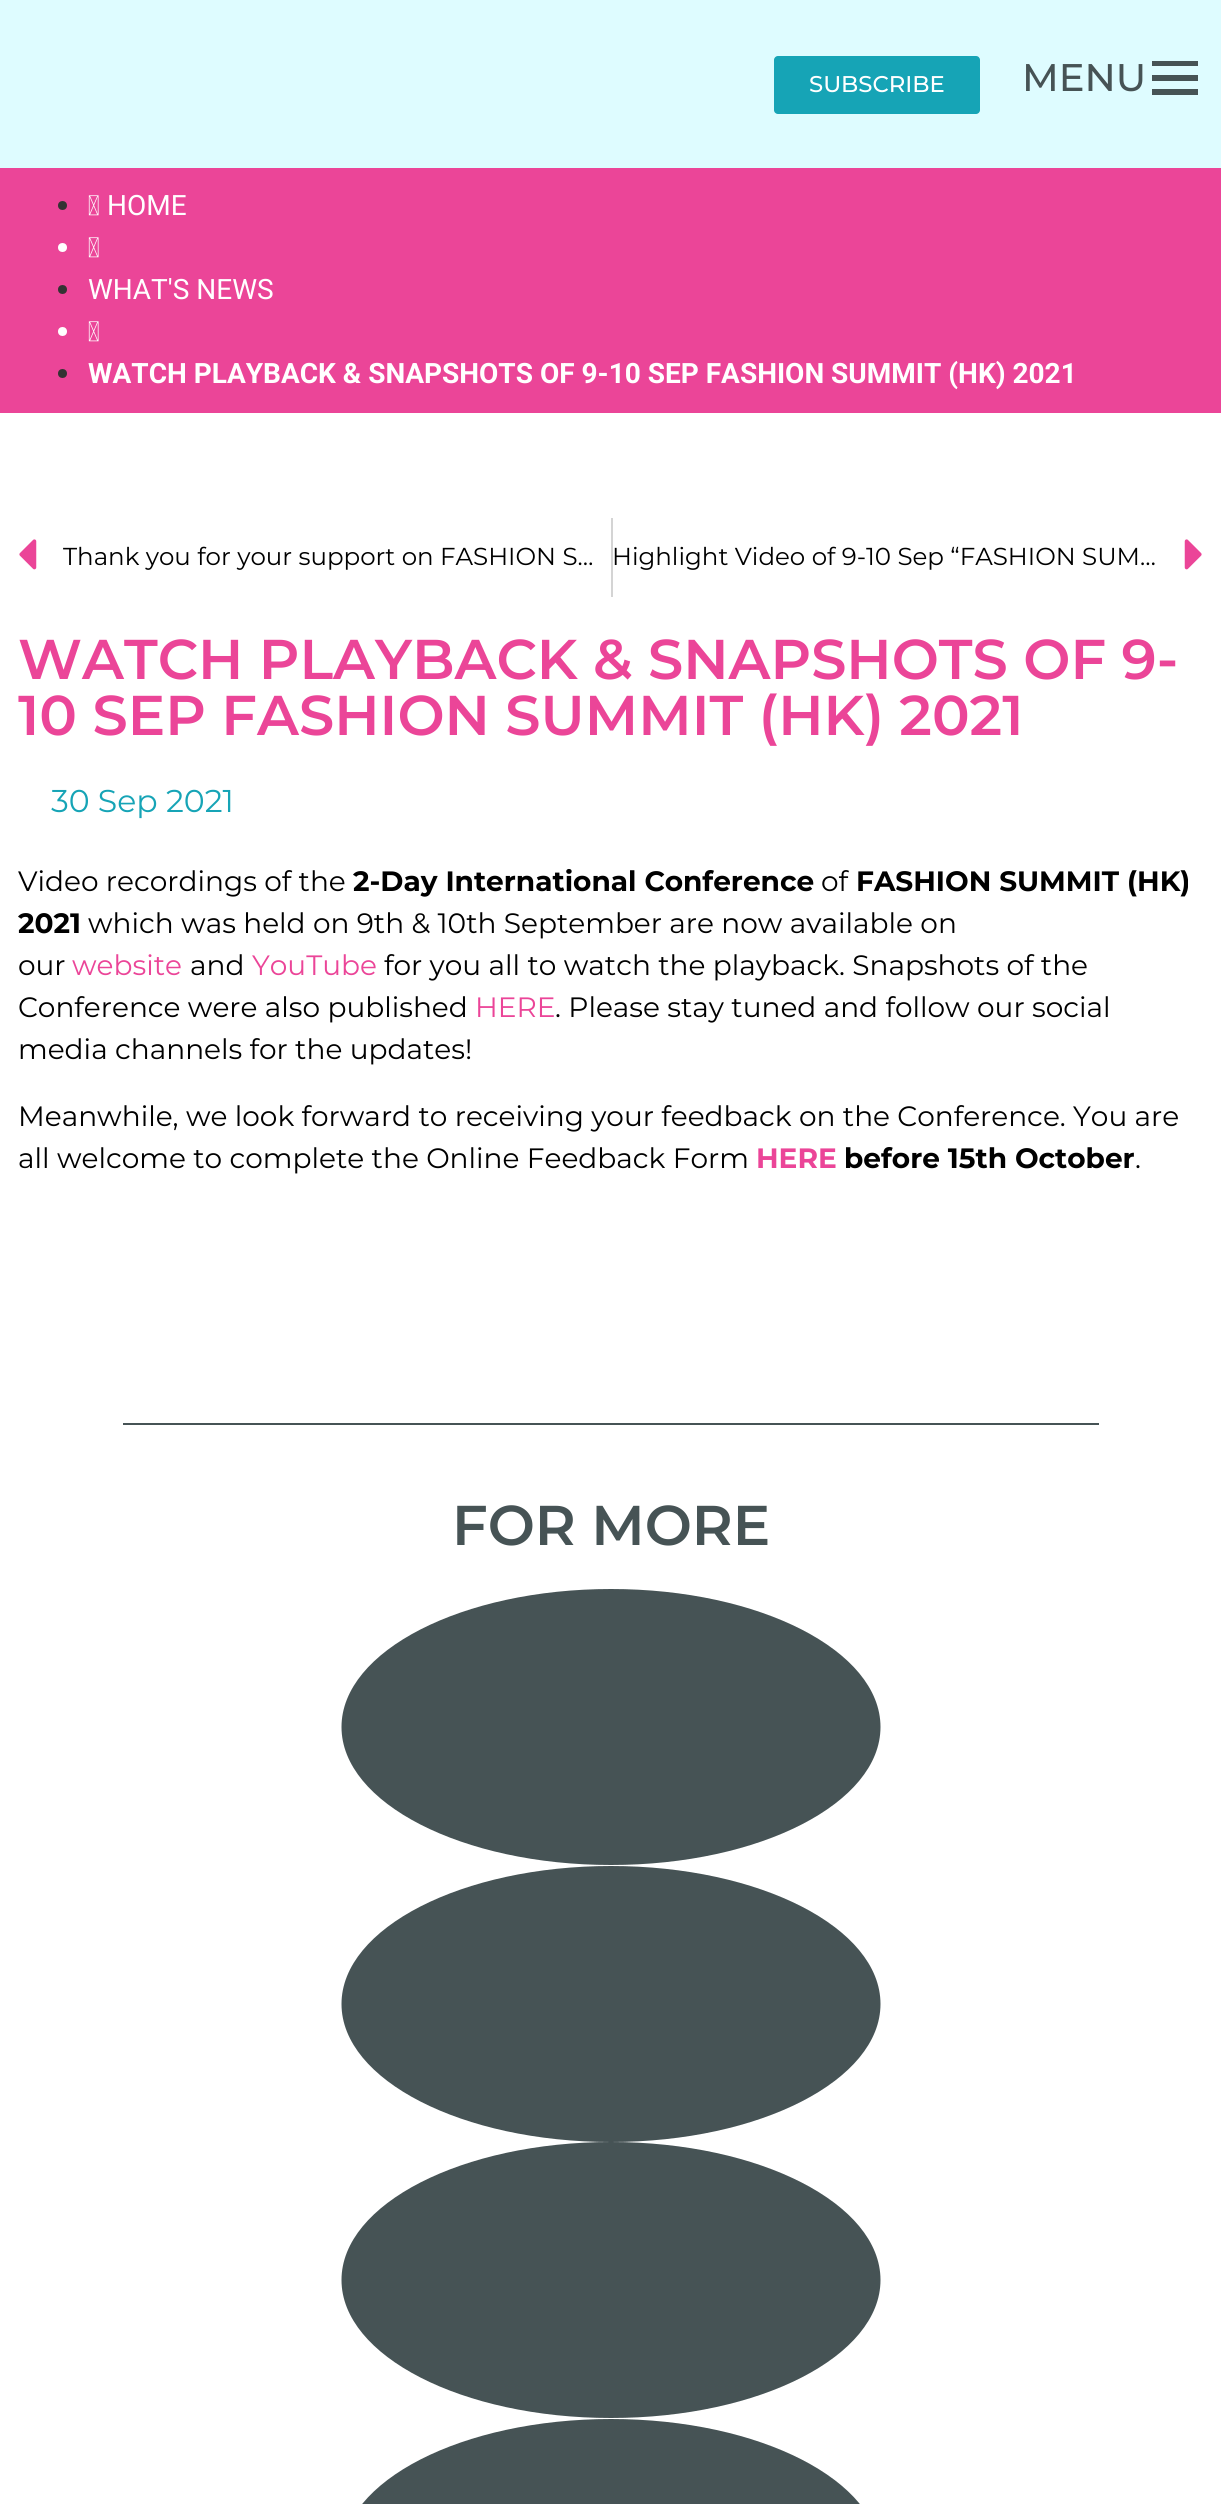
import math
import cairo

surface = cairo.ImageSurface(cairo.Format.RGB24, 1221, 2504)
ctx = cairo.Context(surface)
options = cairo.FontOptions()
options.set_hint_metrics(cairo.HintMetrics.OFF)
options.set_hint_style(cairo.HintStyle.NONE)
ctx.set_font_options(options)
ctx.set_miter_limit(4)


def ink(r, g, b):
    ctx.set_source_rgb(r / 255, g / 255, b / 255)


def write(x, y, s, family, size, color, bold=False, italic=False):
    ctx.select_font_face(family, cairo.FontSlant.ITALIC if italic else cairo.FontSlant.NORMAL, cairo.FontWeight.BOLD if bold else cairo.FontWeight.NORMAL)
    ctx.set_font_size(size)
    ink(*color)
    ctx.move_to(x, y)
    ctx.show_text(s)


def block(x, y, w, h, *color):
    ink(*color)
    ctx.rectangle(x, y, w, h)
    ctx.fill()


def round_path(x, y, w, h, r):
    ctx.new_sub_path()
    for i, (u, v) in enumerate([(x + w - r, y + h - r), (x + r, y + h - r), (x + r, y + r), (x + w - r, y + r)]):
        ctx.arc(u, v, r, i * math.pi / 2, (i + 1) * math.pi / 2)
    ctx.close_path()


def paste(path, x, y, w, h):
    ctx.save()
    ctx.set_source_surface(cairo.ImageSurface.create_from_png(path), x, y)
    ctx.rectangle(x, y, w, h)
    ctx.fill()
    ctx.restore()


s1 = dict(family="Montserrat Medium", size=22.75, color=(255, 255, 255))
s2 = dict(family="Montserrat Medium", size=38.5, color=(70, 83, 85))
s3 = dict(family="Roboto", size=28, color=(255, 255, 255))
s4 = dict(family="Roboto", size=28, color=(255, 255, 255), bold=True)
s5 = dict(family="Montserrat", size=24.5, color=(0, 0, 0))
s6 = dict(family="Montserrat SemiBold", size=56, color=(235, 69, 152))
s7 = dict(family="Montserrat", size=31.5, color=(22, 164, 182))
s8 = dict(family="Montserrat", size=28, color=(0, 0, 0))
s9 = dict(family="Montserrat", size=28, color=(0, 0, 0), bold=True)
s10 = dict(family="Montserrat", size=28, color=(235, 69, 152))
s11 = dict(family="Montserrat", size=28, color=(235, 69, 152), bold=True)
s12 = dict(family="Montserrat SemiBold", size=56, color=(70, 83, 85))

ink(255, 255, 255)
ctx.paint()
block(0, 0, 1221, 168, 222, 252, 255)
ink(22, 164, 182)
round_path(774, 56, 206, 58, 4)
ctx.fill()
write(809, 92, "SUBSCRIBE", **s1)
write(1022, 91, "MENU", **s2)
block(1152, 61, 46, 5, 70, 83, 85)
block(1152, 75, 46, 6, 70, 83, 85)
block(1152, 89, 46, 6, 70, 83, 85)
block(0, 168, 1221, 245, 235, 69, 152)
ink(51, 51, 51)
ctx.new_path()
ctx.arc(62.5, 205.5, 4.5, 0, 2 * math.pi)
ctx.fill()
paste("pic1.png", 88, 195, 11, 21)
write(107, 215, "HOME", **s3)
ctx.new_path()
ctx.arc(62.5, 247.5, 4.5, 0, 2 * math.pi)
ctx.fill()
paste("pic1.png", 88, 237, 11, 21)
ink(51, 51, 51)
ctx.arc(62.5, 289.5, 4.5, 0, 2 * math.pi)
ctx.fill()
write(88, 299, "WHAT'S NEWS", **s3)
ctx.new_path()
ctx.arc(62.5, 331.5, 4.5, 0, 2 * math.pi)
ctx.fill()
paste("pic1.png", 88, 321, 11, 21)
ink(51, 51, 51)
ctx.arc(62.5, 373.5, 4.5, 0, 2 * math.pi)
ctx.fill()
write(88, 383, "WATCH PLAYBACK & SNAPSHOTS OF 9-10 SEP FASHION SUMMIT (HK) 2021", **s4)
paste("pic2.png", 19, 539, 18, 31)
write(63, 565, "Thank you for your support on FASHION S…", **s5)
block(611, 518, 2, 79, 212, 212, 212)
write(612, 565, "Highlight Video of 9-10 Sep “FASHION SUM…", **s5)
paste("pic3.png", 1184, 539, 18, 31)
write(18, 679, "WATCH PLAYBACK & SNAPSHOTS OF 9-", **s6)
write(18, 735, "10 SEP FASHION SUMMIT (HK) 2021", **s6)
write(51, 812, "30 Sep 2021", **s7)
write(18, 891, "Video recordings of the", **s8)
write(353, 891, "2-Day International Conference", **s9)
write(821, 891, "of", **s8)
write(856, 891, "FASHION SUMMIT (HK)", **s9)
write(18, 933, "2021", **s9)
write(88, 933, "which was held on 9th & 10th September are now available on", **s8)
write(18, 975, "our", **s8)
write(72, 975, "website", **s10)
write(190, 975, "and", **s8)
write(252, 975, "YouTube", **s10)
write(384, 975, "for you all to watch the playback. Snapshots of the", **s8)
write(18, 1017, "Conference were also published", **s8)
write(475, 1017, "HERE", **s10)
write(555, 1017, ". Please stay tuned and follow our social", **s8)
write(18, 1059, "media channels for the updates!", **s8)
write(18, 1126, "Meanwhile, we look forward to receiving your feedback on the Conference. You are", **s8)
write(18, 1168, "all welcome to complete the Online Feedback Form", **s8)
write(756, 1168, "HERE", **s11)
write(844, 1168, "before 15th October", **s9)
write(1135, 1168, ".", **s8)
block(123, 1423, 976, 2, 70, 83, 85)
write(452, 1545, "FOR MORE", **s12)
ctx.new_path()
ctx.move_to(611, 1589)
ctx.curve_to(760, 1589, 880.5, 1651, 880.5, 1727)
ctx.curve_to(880.5, 1803, 760, 1865, 611, 1865)
ctx.curve_to(462, 1865, 341.5, 1803, 341.5, 1727)
ctx.curve_to(341.5, 1651, 462, 1589, 611, 1589)
ctx.close_path()
ctx.fill()
ctx.new_path()
ctx.move_to(611, 1866)
ctx.curve_to(760, 1866, 880.5, 1928, 880.5, 2004)
ctx.curve_to(880.5, 2080, 760, 2142, 611, 2142)
ctx.curve_to(462, 2142, 341.5, 2080, 341.5, 2004)
ctx.curve_to(341.5, 1928, 462, 1866, 611, 1866)
ctx.close_path()
ctx.fill()
ctx.new_path()
ctx.move_to(611, 2142)
ctx.curve_to(760, 2142, 880.5, 2204, 880.5, 2280)
ctx.curve_to(880.5, 2356, 760, 2418, 611, 2418)
ctx.curve_to(462, 2418, 341.5, 2356, 341.5, 2280)
ctx.curve_to(341.5, 2204, 462, 2142, 611, 2142)
ctx.close_path()
ctx.fill()
ctx.new_path()
ctx.move_to(611, 2419)
ctx.curve_to(760, 2419, 880.5, 2481, 880.5, 2557)
ctx.curve_to(880.5, 2633, 760, 2695, 611, 2695)
ctx.curve_to(462, 2695, 341.5, 2633, 341.5, 2557)
ctx.curve_to(341.5, 2481, 462, 2419, 611, 2419)
ctx.close_path()
ctx.fill()
surface.write_to_png("screenshot.png")
